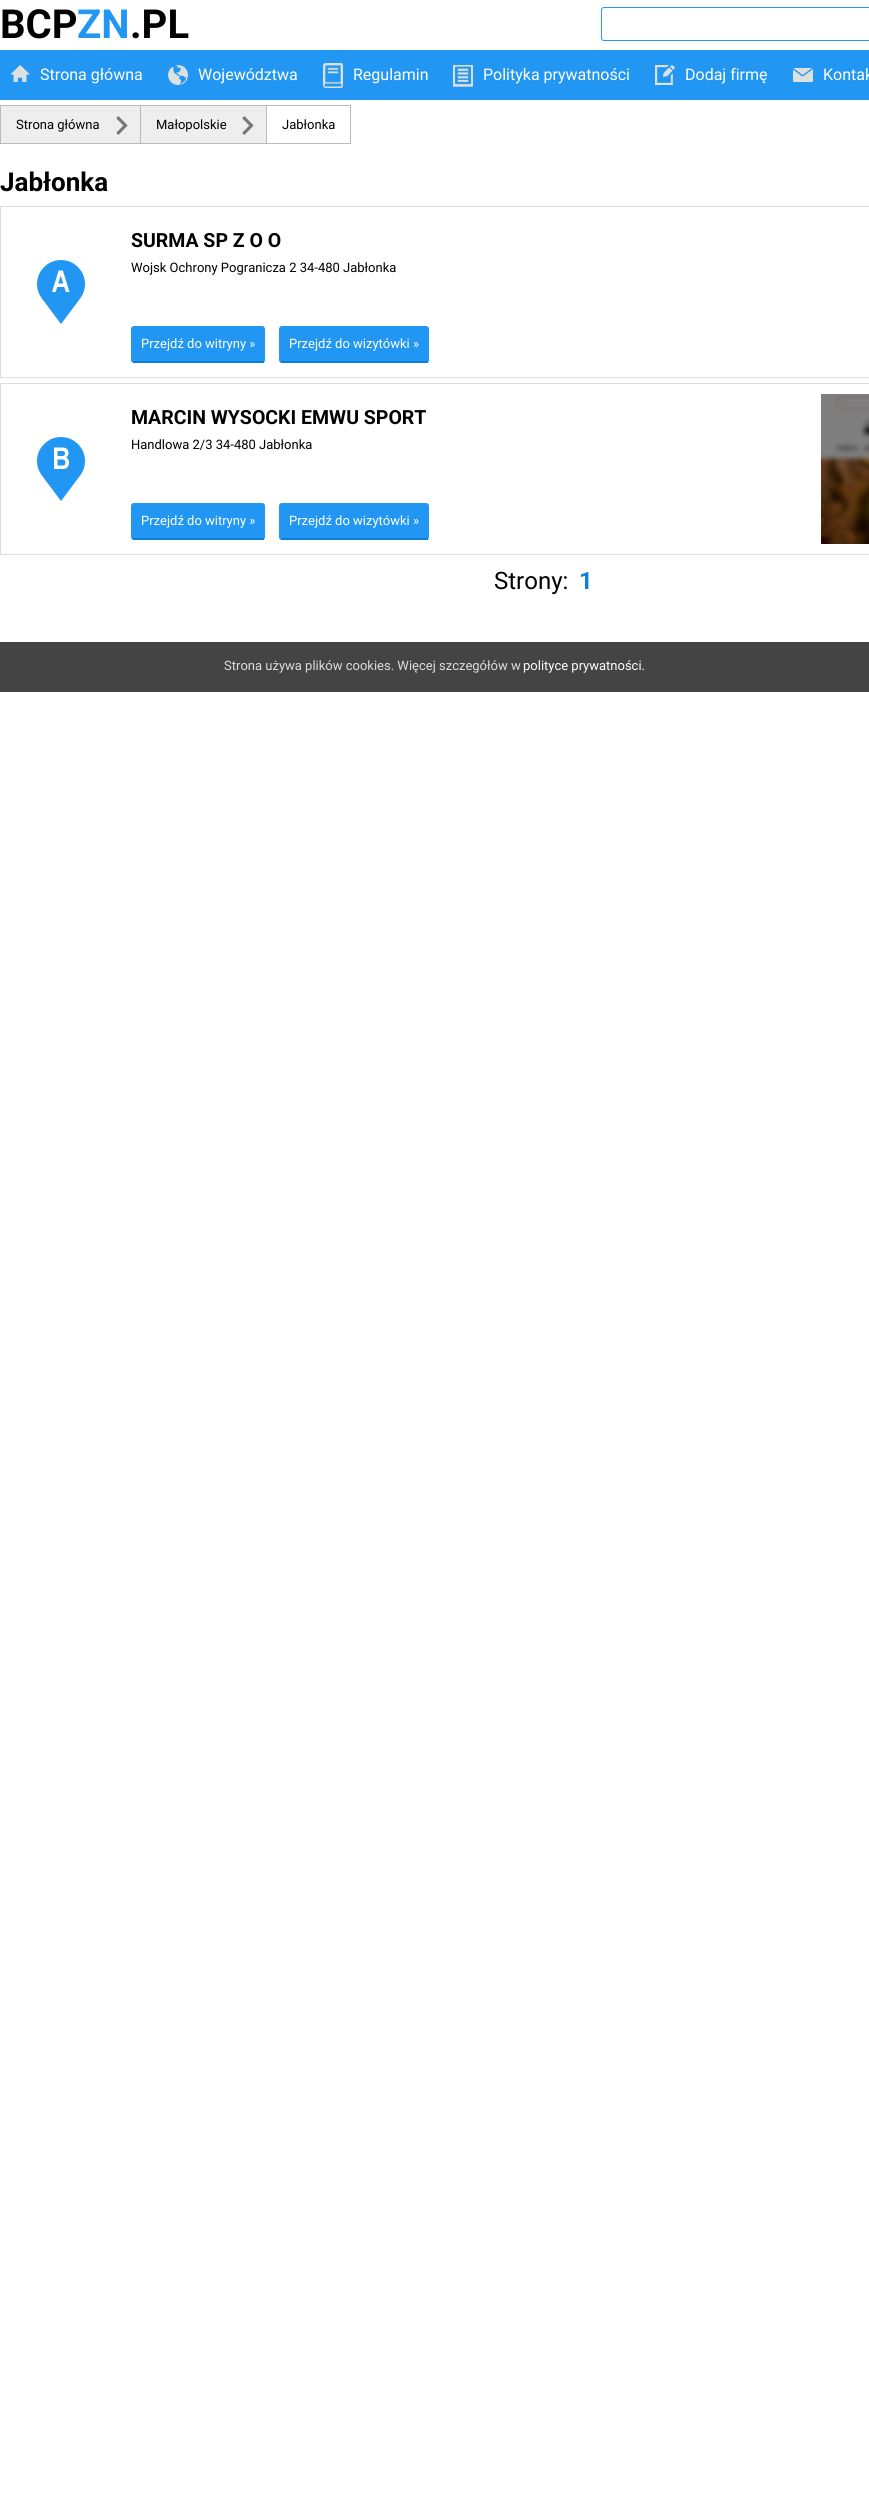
import math
import cairo

surface = cairo.ImageSurface(cairo.Format.RGB24, 869, 2513)
ctx = cairo.Context(surface)
options = cairo.FontOptions()
options.set_hint_metrics(cairo.HintMetrics.OFF)
options.set_hint_style(cairo.HintStyle.NONE)
ctx.set_font_options(options)
ctx.set_miter_limit(4)


def ink(r, g, b):
    ctx.set_source_rgb(r / 255, g / 255, b / 255)


def write(x, y, s, family, size, color, bold=False, italic=False):
    ctx.select_font_face(family, cairo.FontSlant.ITALIC if italic else cairo.FontSlant.NORMAL, cairo.FontWeight.BOLD if bold else cairo.FontWeight.NORMAL)
    ctx.set_font_size(size)
    ink(*color)
    ctx.move_to(x, y)
    ctx.show_text(s)


def block(x, y, w, h, *color):
    ink(*color)
    ctx.rectangle(x, y, w, h)
    ctx.fill()


def round_path(x, y, w, h, r):
    ctx.new_sub_path()
    for i, (u, v) in enumerate([(x + w - r, y + h - r), (x + r, y + h - r), (x + r, y + r), (x + w - r, y + r)]):
        ctx.arc(u, v, r, i * math.pi / 2, (i + 1) * math.pi / 2)
    ctx.close_path()


def paste(path, x, y, w, h):
    ctx.save()
    ctx.set_source_surface(cairo.ImageSurface.create_from_png(path), x, y)
    ctx.rectangle(x, y, w, h)
    ctx.fill()
    ctx.restore()


s1 = dict(family="Roboto", size=40, color=(0, 0, 0), bold=True)
s2 = dict(family="Roboto", size=40, color=(33, 150, 243), bold=True)
s3 = dict(family="Roboto", size=16, color=(255, 255, 255))
s4 = dict(family="Roboto", size=13, color=(0, 0, 0))
s5 = dict(family="Roboto", size=26, color=(0, 0, 0), bold=True)
s6 = dict(family="Roboto", size=19.5, color=(0, 0, 0), bold=True)
s7 = dict(family="Roboto", size=13, color=(255, 255, 255))
s8 = dict(family="Roboto", size=24, color=(0, 0, 0))
s9 = dict(family="Roboto", size=24, color=(12, 127, 218), bold=True)
s10 = dict(family="Roboto", size=13, color=(221, 221, 221))

ink(255, 255, 255)
ctx.paint()
write(0, 38, "BCP", **s1)
write(77, 38, "ZN", **s2)
write(130, 38, ".PL", **s1)
round_path(601.5, 7.5, 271, 33, 2.5)
ink(33, 150, 243)
ctx.set_line_width(1)
ctx.stroke()
block(0, 50, 869, 50, 33, 150, 243)
paste("pic1.png", 10, 65, 20, 17)
write(40, 80, "Strona główna", **s3)
paste("pic2.png", 168, 65, 20, 20)
write(198, 80, "Województwa", **s3)
paste("pic3.png", 323, 63, 20, 25)
write(353, 80, "Regulamin", **s3)
paste("pic4.png", 453, 65, 20, 22)
write(483, 80, "Polityka prywatności", **s3)
paste("pic5.png", 655, 65, 20, 20)
write(685, 80, "Dodaj firmę", **s3)
paste("pic6.png", 793, 68, 20, 14)
write(823, 80, "Kontak", **s3)
ink(238, 238, 238)
ctx.rectangle(0.5, 105.5, 140, 38)
ctx.fill_preserve()
ink(187, 187, 187)
ctx.stroke()
write(16, 129, "Strona główna", **s4)
paste("pic7.png", 116, 116, 12, 19)
ctx.rectangle(266.5, 105.5, 84, 38)
ink(187, 187, 187)
ctx.stroke()
ink(238, 238, 238)
ctx.rectangle(140.5, 105.5, 126, 38)
ctx.fill_preserve()
ink(187, 187, 187)
ctx.stroke()
write(156, 129, "Małopolskie", **s4)
paste("pic7.png", 242, 116, 12, 19)
write(282, 129, "Jabłonka", **s4)
write(0, 191, "Jabłonka", **s5)
ctx.rectangle(0.5, 206.5, 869, 171)
ink(221, 221, 221)
ctx.stroke()
paste("pic8.png", 37, 260, 48, 64)
write(131, 247, "SURMA SP Z O O", **s6)
write(131, 272, "Wojsk Ochrony Pogranicza 2 34-480 Jabłonka", **s4)
ink(33, 150, 243)
round_path(131, 326, 134, 37, 3)
ctx.fill()
write(141, 348, "Przejdź do witryny »", **s7)
block(133, 361, 131, 2, 12, 127, 218)
ink(33, 150, 243)
round_path(279, 326, 150, 37, 3)
ctx.fill()
write(289, 348, "Przejdź do wizytówki »", **s7)
block(281, 361, 147, 2, 12, 127, 218)
ctx.rectangle(0.5, 383.5, 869, 171)
ink(221, 221, 221)
ctx.stroke()
paste("pic9.png", 37, 437, 48, 64)
write(131, 424, "MARCIN WYSOCKI EMWU SPORT", **s6)
write(131, 449, "Handlowa 2/3 34-480 Jabłonka", **s4)
ink(33, 150, 243)
round_path(131, 503, 134, 37, 3)
ctx.fill()
write(141, 525, "Przejdź do witryny »", **s7)
block(133, 538, 131, 2, 12, 127, 218)
ink(33, 150, 243)
round_path(279, 503, 150, 37, 3)
ctx.fill()
write(289, 525, "Przejdź do wizytówki »", **s7)
block(281, 538, 147, 2, 12, 127, 218)
paste("pic10.png", 821, 394, 48, 150)
write(494, 589, "Strony:", **s8)
write(579, 589, "1", **s9)
block(0, 642, 869, 50, 68, 68, 68)
write(224, 670, "Strona używa plików cookies. Więcej szczegółów w", **s10)
write(523, 670, "polityce prywatności.", **s7)
surface.write_to_png("screenshot.png")
